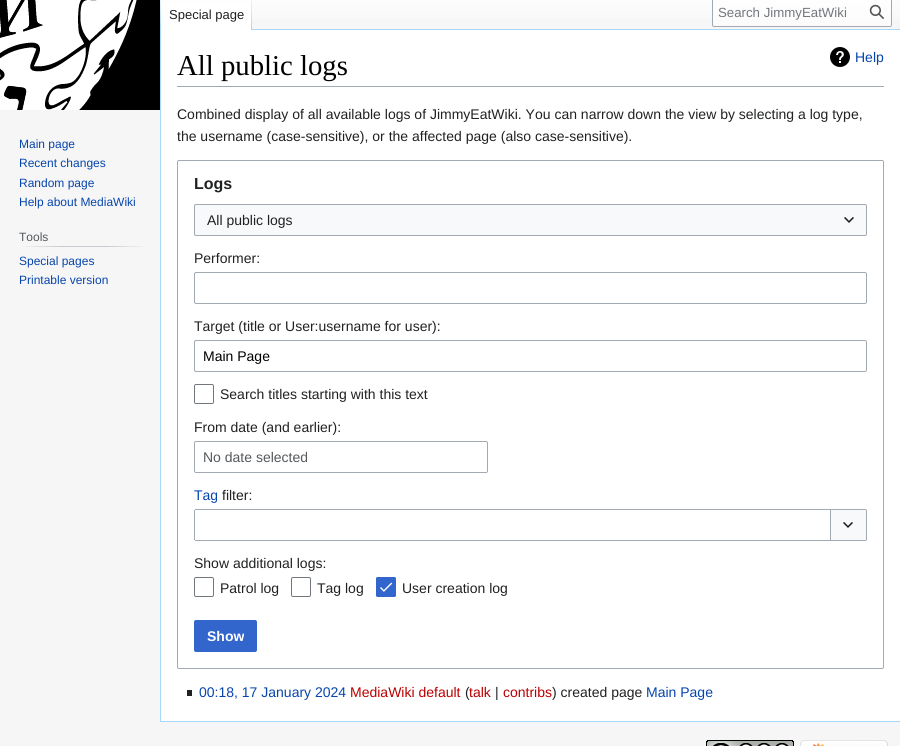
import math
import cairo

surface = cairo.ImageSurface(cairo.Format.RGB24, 900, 746)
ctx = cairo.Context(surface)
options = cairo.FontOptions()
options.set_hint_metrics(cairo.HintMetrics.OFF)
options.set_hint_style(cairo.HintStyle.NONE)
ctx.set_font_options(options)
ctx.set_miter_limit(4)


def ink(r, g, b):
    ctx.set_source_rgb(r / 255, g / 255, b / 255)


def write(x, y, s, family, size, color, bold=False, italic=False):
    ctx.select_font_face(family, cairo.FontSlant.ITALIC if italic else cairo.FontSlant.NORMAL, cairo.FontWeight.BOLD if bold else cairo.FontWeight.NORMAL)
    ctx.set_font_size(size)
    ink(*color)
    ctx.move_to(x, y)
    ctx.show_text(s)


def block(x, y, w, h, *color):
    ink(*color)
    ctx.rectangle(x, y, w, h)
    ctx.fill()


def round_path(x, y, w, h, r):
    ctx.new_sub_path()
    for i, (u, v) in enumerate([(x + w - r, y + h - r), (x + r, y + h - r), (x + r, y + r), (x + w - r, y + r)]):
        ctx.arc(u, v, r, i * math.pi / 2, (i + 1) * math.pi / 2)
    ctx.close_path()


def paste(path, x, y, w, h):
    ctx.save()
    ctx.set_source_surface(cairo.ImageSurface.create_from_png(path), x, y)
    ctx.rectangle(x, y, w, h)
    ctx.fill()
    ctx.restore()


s1 = dict(family="Liberation Sans", size=13, color=(32, 33, 34))
s2 = dict(family="Liberation Sans", size=13.25, color=(114, 119, 125))
s3 = dict(family="Liberation Sans", size=12, color=(6, 69, 173))
s4 = dict(family="Liberation Sans", size=12, color=(84, 89, 93))
s5 = dict(family="Liberation Serif", size=28.75, color=(0, 0, 0))
s6 = dict(family="Liberation Sans", size=14, color=(6, 69, 173))
s7 = dict(family="Liberation Sans", size=14, color=(32, 33, 34))
s8 = dict(family="Liberation Sans", size=16, color=(32, 33, 34), bold=True)
s9 = dict(family="Liberation Sans", size=14, color=(0, 0, 0))
s10 = dict(family="Liberation Sans", size=14, color=(84, 89, 93))
s11 = dict(family="Liberation Sans", size=14, color=(255, 255, 255), bold=True)
s12 = dict(family="Liberation Sans", size=14, color=(186, 0, 0))

ink(246, 246, 246)
ctx.paint()
gradient = cairo.LinearGradient(450, -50, 450, 30)
gradient.add_color_stop_rgba(0.5, 1, 1, 1, 1)
gradient.add_color_stop_rgba(1, 0.965, 0.965, 0.965, 1)
ctx.set_source(gradient)
ctx.rectangle(160, 0, 740, 19)
ctx.fill()
block(160, 721, 740, 1, 167, 215, 249)
block(160, 29, 1, 693, 167, 215, 249)
gradient = cairo.LinearGradient(161, -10, 161, 30)
gradient.add_color_stop_rgba(0, 0.655, 0.843, 0.976, 0)
gradient.add_color_stop_rgba(1, 0.655, 0.843, 0.976, 1)
ctx.set_source(gradient)
ctx.rectangle(160, 0, 1, 30)
ctx.fill()
block(161, 1, 90, 29, 255, 255, 255)
gradient = cairo.LinearGradient(252, -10, 252, 30)
gradient.add_color_stop_rgba(0, 1, 1, 1, 1)
gradient.add_color_stop_rgba(1, 0.655, 0.843, 0.976, 1)
ctx.set_source(gradient)
ctx.rectangle(251, 0, 1, 30)
ctx.fill()
write(169, 19, "Special page", **s1)
ctx.set_source_rgba(1, 1, 1, 0.5)
round_path(712.5, -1.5, 179, 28, 1.5)
ctx.fill_preserve()
ink(162, 169, 177)
ctx.set_line_width(1)
ctx.stroke()
write(718, 17, "Search JimmyEatWiki", **s2)
paste("pic1.png", 869, 4, 15, 15)
paste("pic2.png", 0, 0, 160, 110)
write(19, 148, "Main page", **s3)
write(19, 167, "Recent changes", **s3)
write(19, 187, "Random page", **s3)
write(19, 206, "Help about MediaWiki", **s3)
gradient = cairo.LinearGradient(19, 247, 150, 247)
gradient.add_color_stop_rgba(0, 0.965, 0.965, 0.965, 1)
gradient.add_color_stop_rgba(0.33, 0.784, 0.8, 0.82, 1)
gradient.add_color_stop_rgba(0.66, 0.784, 0.8, 0.82, 1)
gradient.add_color_stop_rgba(1, 0.965, 0.965, 0.965, 1)
ctx.set_source(gradient)
ctx.rectangle(19, 246, 131, 1)
ctx.fill()
write(19, 241, "Tools", **s4)
write(19, 265, "Special pages", **s3)
write(19, 284, "Printable version", **s3)
block(161, 30, 739, 691, 255, 255, 255)
block(252, 29, 648, 1, 167, 215, 249)
block(177, 86, 707, 1, 162, 169, 177)
write(177, 75, "All public logs", **s5)
paste("pic3.png", 830, 47, 20, 20)
write(855, 62, "Help", **s6)
write(177, 119, "Combined display of all available logs of JimmyEatWiki. You can narrow down the view by selecting a log type,", **s7)
write(177, 141, "the username (case-sensitive), or the affected page (also case-sensitive).", **s7)
round_path(177.5, 160.5, 706, 508, 1.5)
ink(162, 169, 177)
ctx.stroke()
write(194, 189, "Logs", **s8)
block(194, 204, 673, 32, 248, 249, 250)
round_path(194.5, 204.5, 672, 31, 1.5)
ink(162, 169, 177)
ctx.stroke()
write(207, 225, "All public logs", **s7)
paste("pic4.png", 844, 217, 10, 6)
write(194, 263, "Performer:", **s7)
round_path(194.5, 272.5, 672, 31, 1.5)
ink(162, 169, 177)
ctx.stroke()
write(194, 331, "Target (title or User:username for user):", **s7)
round_path(194.5, 340.5, 672, 31, 1.5)
ink(162, 169, 177)
ctx.stroke()
write(203, 361, "Main Page", **s9)
round_path(194.5, 384.5, 19, 19, 1.5)
ink(114, 119, 125)
ctx.stroke()
write(220, 399, "Search titles starting with this text", **s7)
write(194, 432, "From date (and earlier):", **s7)
round_path(194.5, 441.5, 293, 31, 1.5)
ink(162, 169, 177)
ctx.stroke()
write(203, 462, "No date selected", **s10)
write(194, 500, "Tag", **s6)
write(222, 500, "filter:", **s7)
block(195, 509, 635, 1, 162, 169, 177)
block(195, 540, 635, 1, 162, 169, 177)
block(194, 510, 1, 30, 162, 169, 177)
ink(248, 249, 250)
ctx.new_path()
ctx.move_to(830.5, 509.5)
ctx.line_to(865, 509.5)
ctx.curve_to(866, 509.5, 866.5, 510, 866.5, 511)
ctx.line_to(866.5, 539)
ctx.curve_to(866.5, 540, 866, 540.5, 865, 540.5)
ctx.line_to(830.5, 540.5)
ctx.close_path()
ctx.fill_preserve()
ink(162, 169, 177)
ctx.stroke()
paste("pic4.png", 843, 522, 10, 6)
write(194, 568, "Show additional logs:", **s7)
round_path(194.5, 577.5, 19, 19, 1.5)
ink(114, 119, 125)
ctx.stroke()
write(220, 593, "Patrol log", **s7)
round_path(291.5, 577.5, 19, 19, 1.5)
ink(114, 119, 125)
ctx.stroke()
write(317, 593, "Tag log", **s7)
ink(51, 102, 204)
round_path(376, 577, 20, 20, 2)
ctx.fill()
paste("pic5.png", 380, 582, 13, 10)
round_path(376.5, 577.5, 19, 19, 1.5)
ctx.stroke()
write(402, 593, "User creation log", **s7)
ink(51, 102, 204)
round_path(194.5, 620.5, 62, 31, 1.5)
ctx.fill_preserve()
ctx.stroke()
write(207, 641, "Show", **s11)
block(187, 690, 5, 6, 32, 33, 34)
write(199, 697, "00:18, 17 January 2024", **s6)
write(350, 697, "MediaWiki default", **s12)
write(465, 697, "(", **s7)
write(469, 697, "talk", **s12)
write(495, 697, "|", **s7)
write(503, 697, "contribs", **s12)
write(552, 697, ") created page", **s7)
write(646, 697, "Main Page", **s6)
paste("pic6.png", 706, 740, 88, 6)
paste("pic7.png", 800, 740, 88, 6)
surface.write_to_png("screenshot.png")
